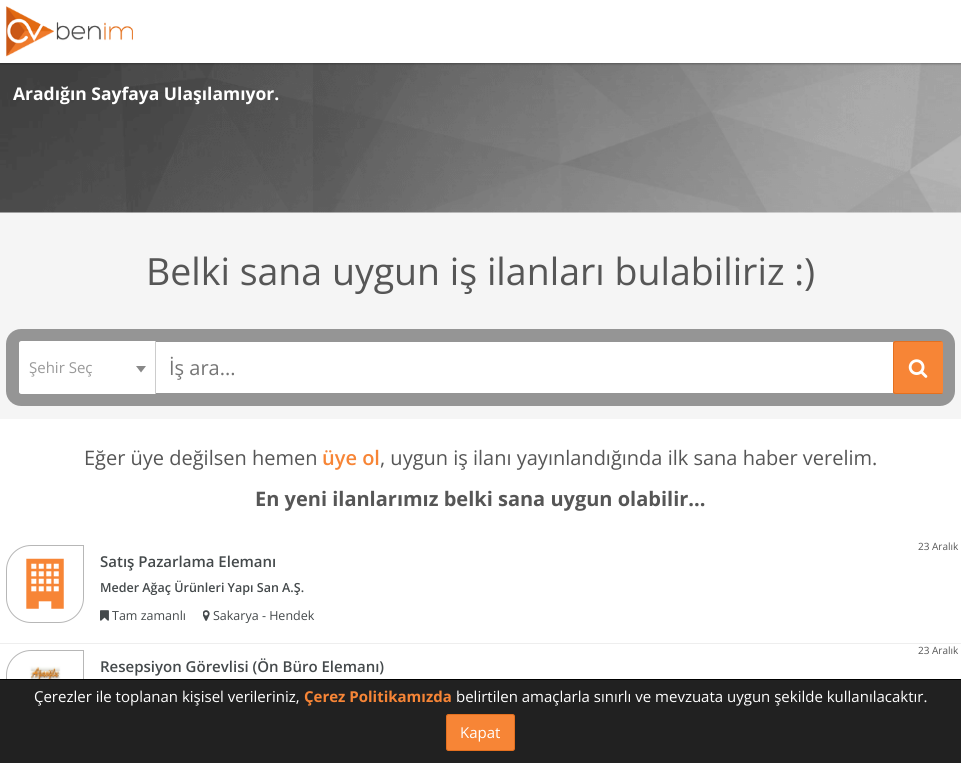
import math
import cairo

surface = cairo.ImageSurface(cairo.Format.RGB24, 961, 763)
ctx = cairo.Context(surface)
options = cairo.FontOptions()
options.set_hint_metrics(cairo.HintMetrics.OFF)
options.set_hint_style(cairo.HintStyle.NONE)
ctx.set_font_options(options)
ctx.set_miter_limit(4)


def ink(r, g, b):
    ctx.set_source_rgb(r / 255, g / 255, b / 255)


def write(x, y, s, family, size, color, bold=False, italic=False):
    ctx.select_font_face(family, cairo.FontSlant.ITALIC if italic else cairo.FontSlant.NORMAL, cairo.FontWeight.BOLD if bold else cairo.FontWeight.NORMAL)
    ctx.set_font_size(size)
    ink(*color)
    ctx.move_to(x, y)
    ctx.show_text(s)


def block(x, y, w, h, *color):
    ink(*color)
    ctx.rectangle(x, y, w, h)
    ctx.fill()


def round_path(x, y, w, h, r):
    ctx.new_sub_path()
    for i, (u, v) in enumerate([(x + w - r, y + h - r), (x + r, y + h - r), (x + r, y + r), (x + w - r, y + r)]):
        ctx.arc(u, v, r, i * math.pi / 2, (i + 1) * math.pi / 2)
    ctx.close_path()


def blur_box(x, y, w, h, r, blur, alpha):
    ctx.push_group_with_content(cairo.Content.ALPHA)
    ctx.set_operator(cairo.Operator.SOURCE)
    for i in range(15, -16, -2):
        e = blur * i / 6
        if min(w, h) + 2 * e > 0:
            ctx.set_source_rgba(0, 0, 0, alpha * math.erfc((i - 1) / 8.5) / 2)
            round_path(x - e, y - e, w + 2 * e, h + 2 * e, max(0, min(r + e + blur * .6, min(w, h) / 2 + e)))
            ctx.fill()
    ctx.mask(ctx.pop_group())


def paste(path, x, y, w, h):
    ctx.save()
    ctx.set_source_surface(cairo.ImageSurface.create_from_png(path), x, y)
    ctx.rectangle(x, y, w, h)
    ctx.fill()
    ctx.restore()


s1 = dict(family="Open Sans", size=17.5, color=(255, 255, 255), bold=True)
s2 = dict(family="Open Sans", size=37.5, color=(86, 86, 86))
s3 = dict(family="Open Sans", size=15, color=(153, 153, 153))
s4 = dict(family="Open Sans", size=20, color=(117, 117, 117))
s5 = dict(family="Open Sans", size=20, color=(86, 86, 86))
s6 = dict(family="Open Sans SemiBold", size=20, color=(247, 133, 54))
s7 = dict(family="Open Sans", size=20, color=(86, 86, 86), bold=True)
s8 = dict(family="Open Sans SemiBold", size=15, color=(68, 73, 75))
s9 = dict(family="Open Sans SemiBold", size=12.5, color=(68, 73, 75))
s10 = dict(family="Open Sans", size=12.5, color=(68, 73, 75))
s11 = dict(family="Open Sans", size=10, color=(86, 86, 86))
s12 = dict(family="Open Sans", size=15, color=(255, 255, 255))
s13 = dict(family="Open Sans", size=15, color=(247, 133, 54), bold=True)

ink(245, 245, 245)
ctx.paint()
paste("pic2.png", 0, 63, 961, 150)
ink(0, 0, 0)
blur_box(0, 1, 961, 63, 0, 1, 0.3)
block(0, 0, 961, 63, 255, 255, 255)
paste("pic1.png", 6, 6, 127, 51)
write(13, 100, "Aradığın Sayfaya Ulaşılamıyor.", **s1)
write(146, 285, "Belki sana uygun iş ilanları bulabiliriz :)", **s2)
ink(255, 255, 255)
round_path(19, 341, 924, 53, 2.5)
ctx.fill()
round_path(12.5, 335.5, 936, 64, 8.5)
ink(149, 149, 149)
ctx.set_line_width(13)
ctx.stroke()
block(155, 341, 1, 53, 204, 204, 204)
ink(255, 255, 255)
ctx.new_path()
ctx.move_to(21.5, 341)
ctx.line_to(155, 341)
ctx.line_to(155, 394)
ctx.line_to(21.5, 394)
ctx.curve_to(20, 394, 19, 393, 19, 391.5)
ctx.line_to(19, 343.5)
ctx.curve_to(19, 342, 20, 341, 21.5, 341)
ctx.close_path()
ctx.fill()
write(29, 373, "Şehir Seç", **s3)
ink(136, 136, 136)
ctx.new_path()
ctx.move_to(136, 366)
ctx.line_to(146, 366)
ctx.line_to(141, 372.5)
ctx.close_path()
ctx.fill()
write(169, 375, "İş ara...", **s4)
ink(247, 133, 54)
round_path(893, 341, 50, 53, 2.5)
ctx.fill()
ink(228, 112, 31)
ctx.new_path()
ctx.move_to(896, 341)
ctx.curve_to(894, 341, 893, 342, 893, 344)
ctx.line_to(893, 392)
ctx.curve_to(893, 393, 894, 394, 896, 394)
ctx.line_to(940, 394)
ctx.curve_to(941, 394, 942, 394, 943, 393)
ctx.line_to(896, 393)
ctx.curve_to(895, 393, 894, 392, 894, 392)
ctx.line_to(894, 344)
ctx.curve_to(894, 343, 895, 342, 896, 342)
ctx.line_to(943, 342)
ctx.line_to(940, 341)
ctx.close_path()
ctx.fill()
paste("pic3.png", 908, 359, 20, 19)
block(0, 419, 961, 260, 255, 255, 255)
write(84, 465, "Eğer üye değilsen hemen", **s5)
write(322, 465, "üye ol", **s6)
write(380, 465, ", uygun iş ilanı yayınlandığında ilk sana haber verelim.", **s5)
write(255, 506, "En yeni ilanlarımız belki sana uygun olabilir...", **s7)
block(0, 643, 961, 1, 238, 238, 238)
ctx.new_path()
ctx.move_to(31, 545.5)
ctx.line_to(83.5, 545.5)
ctx.line_to(83.5, 598)
ctx.curve_to(83.5, 611.5, 72.5, 622.5, 59, 622.5)
ctx.line_to(31, 622.5)
ctx.curve_to(17.5, 622.5, 6.5, 611.5, 6.5, 598)
ctx.line_to(6.5, 570)
ctx.curve_to(6.5, 556.5, 17.5, 545.5, 31, 545.5)
ctx.close_path()
ink(183, 183, 183)
ctx.set_line_width(1)
ctx.stroke()
paste("pic4.png", 26, 558, 38, 51)
write(100, 567, "Satış Pazarlama Elemanı", **s8)
write(100, 592, "Meder Ağaç Ürünleri Yapı San A.Ş.", **s9)
paste("pic5.png", 100, 610, 9, 11)
write(112, 620, "Tam zamanlı", **s10)
paste("pic6.png", 203, 610, 7, 11)
write(213, 620, "Sakarya - Hendek", **s10)
write(918, 550, "23 Aralık", **s11)
ctx.new_path()
ctx.move_to(31, 650.5)
ctx.line_to(83.5, 650.5)
ctx.line_to(83.5, 703)
ctx.curve_to(83.5, 716.5, 72.5, 727.5, 59, 727.5)
ctx.line_to(31, 727.5)
ctx.curve_to(17.5, 727.5, 6.5, 716.5, 6.5, 703)
ctx.line_to(6.5, 675)
ctx.curve_to(6.5, 661.5, 17.5, 650.5, 31, 650.5)
ctx.close_path()
ink(183, 183, 183)
ctx.stroke()
paste("pic7.png", 12, 658, 66, 21)
write(100, 672, "Resepsiyon Görevlisi (Ön Büro Elemanı)", **s8)
write(918, 654, "23 Aralık", **s11)
block(0, 680, 961, 83, 33, 33, 33)
block(0, 679, 961, 1, 0, 0, 0)
write(34, 702, "Çerezler ile toplanan kişisel verileriniz,", **s12)
write(304, 702, "Çerez Politikamızda", **s13)
write(456, 702, "belirtilen amaçlarla sınırlı ve mevzuata uygun şekilde kullanılacaktır.", **s12)
ink(247, 133, 54)
round_path(446.5, 714.5, 68, 36, 2)
ctx.fill_preserve()
ink(228, 112, 31)
ctx.stroke()
write(460, 738, "Kapat", **s12)
surface.write_to_png("screenshot.png")
